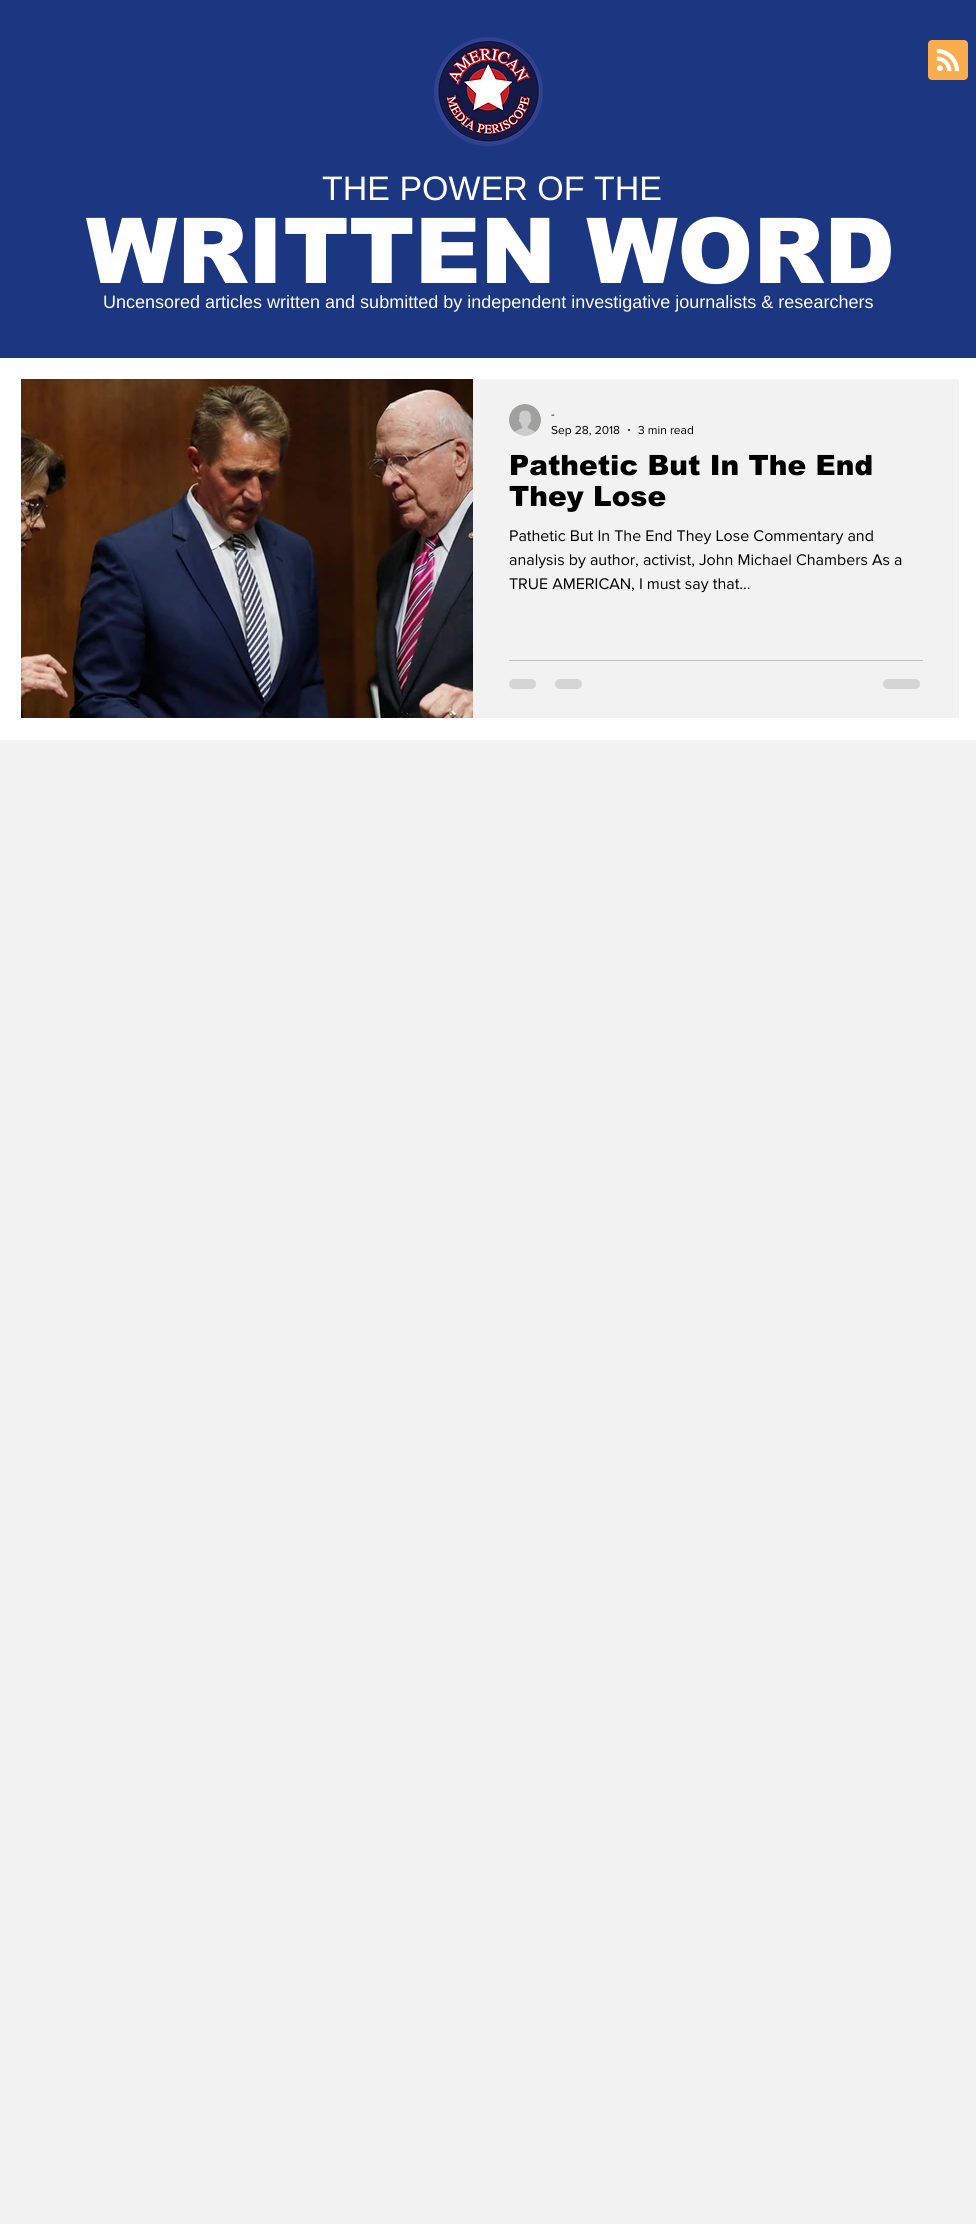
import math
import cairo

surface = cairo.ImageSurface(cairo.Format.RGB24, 976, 2224)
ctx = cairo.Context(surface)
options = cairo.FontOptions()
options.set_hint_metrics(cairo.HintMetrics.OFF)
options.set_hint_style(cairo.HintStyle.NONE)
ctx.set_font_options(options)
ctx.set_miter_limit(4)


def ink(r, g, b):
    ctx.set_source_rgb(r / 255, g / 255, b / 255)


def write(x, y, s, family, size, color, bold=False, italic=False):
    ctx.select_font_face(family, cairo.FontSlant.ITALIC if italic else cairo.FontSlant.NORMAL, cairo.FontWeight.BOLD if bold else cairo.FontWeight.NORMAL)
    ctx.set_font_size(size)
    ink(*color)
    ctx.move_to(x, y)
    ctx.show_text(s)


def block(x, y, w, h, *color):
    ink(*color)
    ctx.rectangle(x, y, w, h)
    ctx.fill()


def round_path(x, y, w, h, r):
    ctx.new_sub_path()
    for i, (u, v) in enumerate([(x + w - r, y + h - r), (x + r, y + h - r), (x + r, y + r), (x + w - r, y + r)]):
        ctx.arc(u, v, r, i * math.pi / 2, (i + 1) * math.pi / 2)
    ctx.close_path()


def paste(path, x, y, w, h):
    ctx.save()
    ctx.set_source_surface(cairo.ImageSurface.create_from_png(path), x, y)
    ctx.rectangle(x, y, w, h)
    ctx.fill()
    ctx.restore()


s1 = dict(family="Liberation Sans", size=34, color=(255, 255, 255))
s2 = dict(family="arial Black", size=91, color=(255, 255, 255))
s3 = dict(family="Liberation Sans", size=18, color=(255, 255, 255))
s4 = dict(family="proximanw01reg", size=12, color=(0, 0, 0))
s5 = dict(family="arial Black", size=28, color=(0, 0, 0))
s6 = dict(family="proximanw01reg", size=16, color=(0, 0, 0))

ink(242, 242, 242)
ctx.paint()
block(0, 0, 976, 358, 28, 55, 129)
paste("pic1.png", 434, 37, 109, 110)
paste("pic2.png", 928, 40, 40, 40)
write(322, 200, "THE POWER OF THE", **s1)
write(86, 283, "WRITTEN WORD", **s2)
write(103, 308, "Uncensored articles written and submitted by independent investigative journalists & researchers", **s3)
block(0, 358, 976, 382, 255, 255, 255)
paste("pic3.png", 21, 379, 452, 339)
block(473, 379, 486, 339, 242, 242, 242)
paste("pic4.png", 509, 404, 32, 32)
write(551, 418, "-", **s4)
write(551, 434, "Sep 28, 2018", **s4)
ctx.new_path()
ctx.arc(629, 430, 1, 0, 2 * math.pi)
ctx.fill()
write(638, 434, "3 min read", **s4)
write(509, 475, "Pathetic But In The End", **s5)
write(509, 506, "They Lose", **s5)
write(509, 541, "Pathetic But In The End They Lose Commentary and", **s6)
write(509, 565, "analysis by author, activist, John Michael Chambers As a", **s6)
write(509, 589, "TRUE AMERICAN, I must say that...", **s6)
block(509, 660, 414, 1, 194, 194, 194)
ink(213, 213, 213)
round_path(509, 679, 27, 10, 5)
ctx.fill()
round_path(555, 679, 27, 10, 5)
ctx.fill()
round_path(883, 679, 37, 10, 5)
ctx.fill()
surface.write_to_png("screenshot.png")
